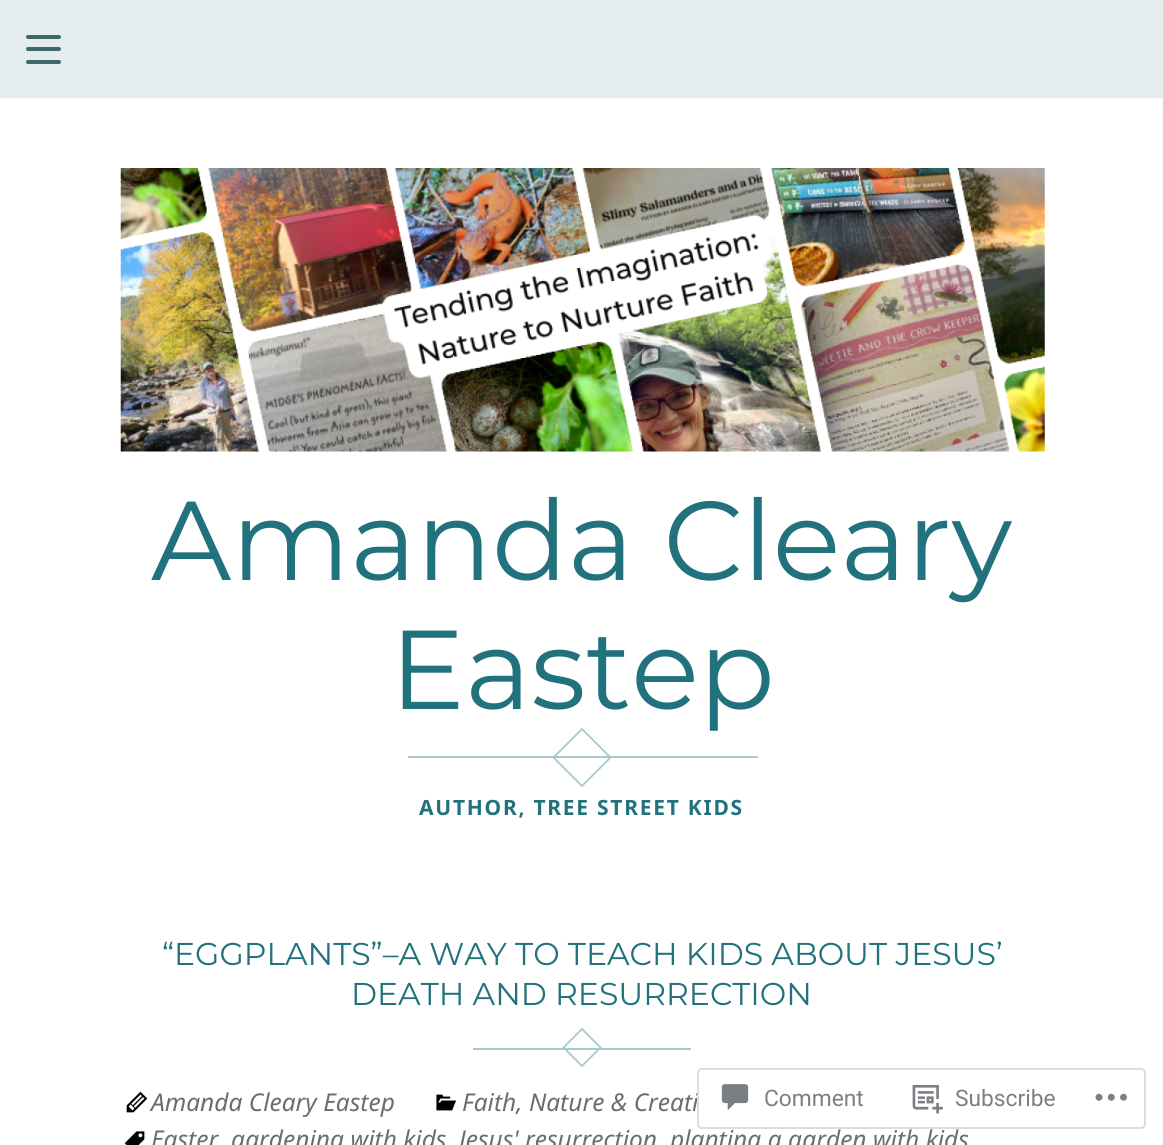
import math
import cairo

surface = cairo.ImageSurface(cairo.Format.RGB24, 1163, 1145)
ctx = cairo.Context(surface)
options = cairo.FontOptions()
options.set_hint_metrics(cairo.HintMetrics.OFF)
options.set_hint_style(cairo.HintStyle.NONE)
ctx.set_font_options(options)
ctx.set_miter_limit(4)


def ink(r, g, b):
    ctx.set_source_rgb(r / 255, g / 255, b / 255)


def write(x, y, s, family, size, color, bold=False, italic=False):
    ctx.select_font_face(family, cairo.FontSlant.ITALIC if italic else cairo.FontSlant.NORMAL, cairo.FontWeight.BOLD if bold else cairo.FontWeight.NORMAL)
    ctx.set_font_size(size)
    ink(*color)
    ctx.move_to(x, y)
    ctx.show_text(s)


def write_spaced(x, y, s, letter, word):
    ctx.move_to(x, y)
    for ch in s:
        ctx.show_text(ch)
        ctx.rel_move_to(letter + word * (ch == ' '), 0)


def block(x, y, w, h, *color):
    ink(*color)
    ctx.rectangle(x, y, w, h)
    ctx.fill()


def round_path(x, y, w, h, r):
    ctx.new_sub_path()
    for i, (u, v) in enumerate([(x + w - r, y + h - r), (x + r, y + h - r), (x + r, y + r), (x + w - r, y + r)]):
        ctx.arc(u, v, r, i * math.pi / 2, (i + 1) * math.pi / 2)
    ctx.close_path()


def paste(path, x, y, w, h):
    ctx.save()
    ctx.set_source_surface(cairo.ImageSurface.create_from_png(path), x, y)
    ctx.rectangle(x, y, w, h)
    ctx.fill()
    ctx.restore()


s1 = dict(family="Montserrat", size=112, color=(33, 114, 124))
s2 = dict(family="Montserrat", size=31.5, color=(33, 114, 124))
s3 = dict(family="Noto Sans", size=24.5, color=(109, 109, 109), italic=True)
s4 = dict(family="Roboto", size=22.75, color=(123, 127, 133))

ink(255, 255, 255)
ctx.paint()
block(0, 0, 1163, 98, 227, 237, 237)
ink(63, 104, 104)
round_path(26, 60, 35, 4, 2)
ctx.fill()
round_path(26, 35, 35, 4, 2)
ctx.fill()
round_path(26, 47, 35, 4, 2)
ctx.fill()
paste("pic1.png", 120, 168, 925, 284)
write(151, 580, "Amanda Cleary", **s1)
write(390, 709, "Eastep", **s1)
block(408, 756, 350, 2, 168, 201, 203)
ctx.new_path()
ctx.move_to(582, 729)
ctx.line_to(610.5, 757.5)
ctx.line_to(582, 786)
ctx.line_to(553.5, 757.5)
ctx.close_path()
ctx.set_line_width(1.8)
ctx.stroke()
ctx.select_font_face("Noto Sans", cairo.FontSlant.NORMAL, cairo.FontWeight.BOLD)
ctx.set_font_size(21)
ink(33, 114, 124)
write_spaced(419, 815, "AUTHOR, TREE STREET KIDS", 1.75, 0)
write(162, 965, "“EGGPLANTS”–A WAY TO TEACH KIDS ABOUT JESUS’", **s2)
write(351, 1005, "DEATH AND RESURRECTION", **s2)
block(473, 1048, 218, 2, 168, 201, 203)
ctx.new_path()
ctx.move_to(582, 1029)
ctx.line_to(600.5, 1047.5)
ctx.line_to(582, 1066)
ctx.line_to(563.5, 1047.5)
ctx.close_path()
ctx.stroke()
paste("pic2.png", 126, 1091, 22, 22)
write(151, 1111, "Amanda Cleary Eastep", **s3)
paste("pic3.png", 436, 1094, 20, 17)
write(462, 1111, "Faith, Nature & Creati", **s3)
paste("pic4.png", 124, 1131, 21, 14)
write(151, 1148, "Easter", **s3)
write(231, 1148, "gardening with kids", **s3)
write(459, 1148, "Jesus' resurrection", **s3)
write(670, 1148, "planting a garden with kids", **s3)
ctx.set_source_rgba(1, 1, 1, 0.98)
round_path(697, 1068, 449, 61, 5)
ctx.fill()
round_path(698, 1069, 447, 59, 4)
ctx.set_source_rgba(0.863, 0.863, 0.871, 0.98)
ctx.set_line_width(2)
ctx.stroke()
paste("pic5.png", 721, 1084, 28, 27)
write(764, 1106, "Comment", **s4)
paste("pic6.png", 912, 1085, 31, 29)
write(955, 1106, "Subscribe", **s4)
paste("pic7.png", 1095, 1093, 32, 8)
surface.write_to_png("screenshot.png")
